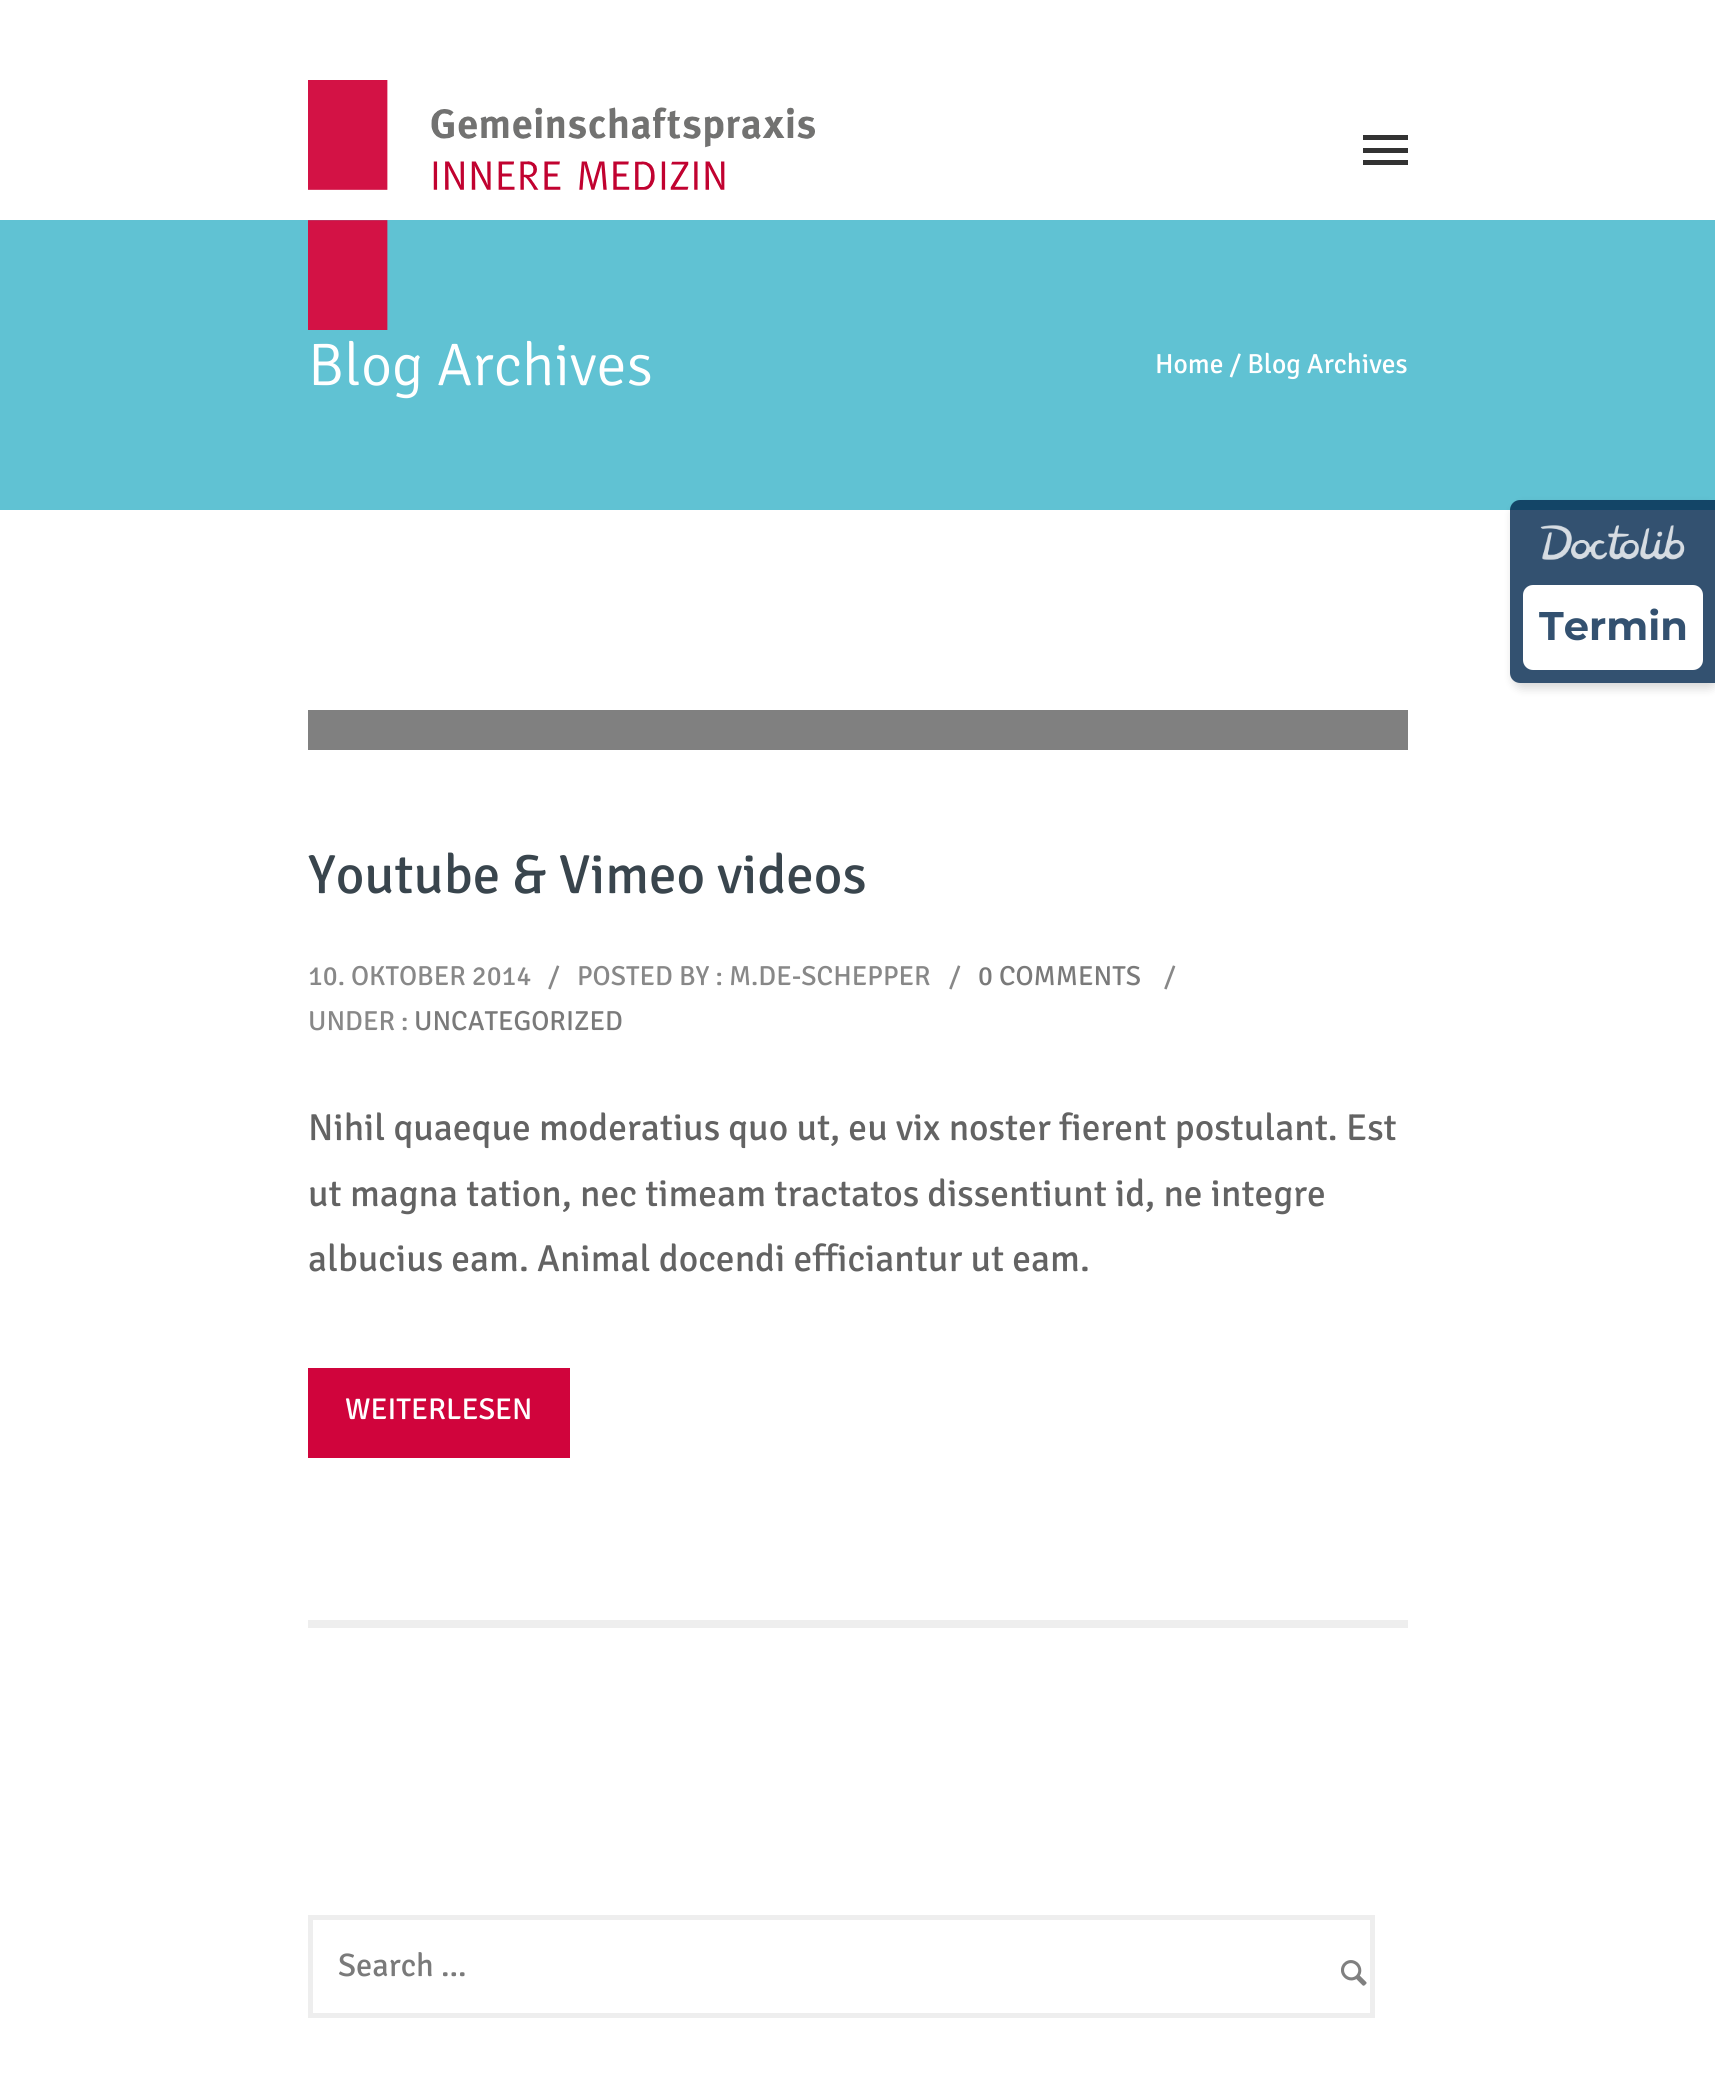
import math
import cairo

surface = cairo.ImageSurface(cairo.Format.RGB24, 1715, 2100)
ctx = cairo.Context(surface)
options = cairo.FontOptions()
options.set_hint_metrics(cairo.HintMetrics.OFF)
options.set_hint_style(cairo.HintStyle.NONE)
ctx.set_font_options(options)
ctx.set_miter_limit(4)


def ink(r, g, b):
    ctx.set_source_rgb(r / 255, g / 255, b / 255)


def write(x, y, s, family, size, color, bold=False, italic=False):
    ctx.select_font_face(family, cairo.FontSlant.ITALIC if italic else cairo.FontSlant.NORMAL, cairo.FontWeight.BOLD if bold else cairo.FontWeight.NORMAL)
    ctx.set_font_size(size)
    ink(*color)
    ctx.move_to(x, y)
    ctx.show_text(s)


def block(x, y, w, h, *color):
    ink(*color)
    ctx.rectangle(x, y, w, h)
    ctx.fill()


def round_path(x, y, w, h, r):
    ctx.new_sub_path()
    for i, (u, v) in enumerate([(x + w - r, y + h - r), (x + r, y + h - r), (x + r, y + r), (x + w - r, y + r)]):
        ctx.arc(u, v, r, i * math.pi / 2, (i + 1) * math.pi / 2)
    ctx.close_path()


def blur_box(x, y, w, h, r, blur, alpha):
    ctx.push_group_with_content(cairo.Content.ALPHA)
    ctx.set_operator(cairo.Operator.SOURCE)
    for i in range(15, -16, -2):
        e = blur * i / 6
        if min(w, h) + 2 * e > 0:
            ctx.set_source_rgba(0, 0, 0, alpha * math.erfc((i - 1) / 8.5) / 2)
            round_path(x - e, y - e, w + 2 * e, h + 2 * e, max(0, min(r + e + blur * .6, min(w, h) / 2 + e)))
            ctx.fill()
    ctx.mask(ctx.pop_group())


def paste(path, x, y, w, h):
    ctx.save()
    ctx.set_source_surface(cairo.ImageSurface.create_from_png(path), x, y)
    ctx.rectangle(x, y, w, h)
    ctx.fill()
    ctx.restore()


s1 = dict(family="Signika Light", size=60, color=(255, 255, 255))
s2 = dict(family="Signika", size=27.5, color=(255, 255, 255))
s3 = dict(family="Signika", size=55, color=(57, 69, 77))
s4 = dict(family="Signika", size=27.5, color=(136, 136, 136))
s5 = dict(family="Signika", size=27.5, color=(122, 122, 122))
s6 = dict(family="Signika", size=37.5, color=(99, 99, 99))
s7 = dict(family="Signika", size=30, color=(255, 255, 255))
s8 = dict(family="Signika", size=32.5, color=(122, 122, 122))
s9 = dict(family="Montserrat", size=40, color=(51, 81, 112), bold=True)

ink(255, 255, 255)
ctx.paint()
block(0, 220, 1715, 290, 96, 194, 211)
paste("pic1.png", 308, 80, 507, 250)
block(1363, 135, 45, 5, 50, 50, 50)
block(1363, 148, 45, 5, 50, 50, 50)
block(1363, 160, 45, 5, 50, 50, 50)
write(308, 385, "Blog Archives", **s1)
write(1155, 373, "Home / Blog Archives", **s2)
block(308, 710, 1100, 40, 128, 128, 128)
write(308, 893, "Youtube & Vimeo videos", **s3)
write(308, 985, "10. OKTOBER 2014", **s4)
write(548, 985, "/", **s4)
write(577, 985, "POSTED BY : M.DE-SCHEPPER", **s4)
write(949, 985, "/", **s4)
write(978, 985, "0 COMMENTS", **s5)
write(1164, 985, "/", **s4)
write(308, 1030, "UNDER :", **s4)
write(414, 1030, "UNCATEGORIZED", **s5)
write(308, 1140, "Nihil quaeque moderatius quo ut, eu vix noster fierent postulant. Est", **s6)
write(308, 1206, "ut magna tation, nec timeam tractatos dissentiunt id, ne integre", **s6)
write(308, 1271, "albucius eam. Animal docendi efficiantur ut eam.", **s6)
block(308, 1368, 262, 90, 208, 4, 60)
write(345, 1419, "WEITERLESEN", **s7)
block(308, 1620, 1100, 8, 238, 238, 238)
ctx.rectangle(310.5, 1917.5, 1062, 98)
ctx.set_line_width(5)
ctx.stroke()
write(338, 1976, "Search ...", **s8)
paste("pic2.png", 1341, 1960, 26, 26)
ctx.save()
ctx.set_fill_rule(cairo.FillRule.EVEN_ODD)
ctx.new_path()
ctx.move_to(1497, 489)
ctx.line_to(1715, 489)
ctx.line_to(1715, 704)
ctx.line_to(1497, 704)
ctx.close_path()
ctx.move_to(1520, 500)
ctx.line_to(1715, 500)
ctx.line_to(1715, 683)
ctx.line_to(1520, 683)
ctx.curve_to(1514.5, 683, 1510, 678.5, 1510, 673)
ctx.line_to(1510, 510)
ctx.curve_to(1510, 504.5, 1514.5, 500, 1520, 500)
ctx.close_path()
ctx.clip()
ink(0, 0, 0)
blur_box(1513, 505, 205, 183, 10, 5, 0.16)
ctx.restore()
ctx.set_source_rgba(0, 0.149, 0.298, 0.8)
ctx.new_path()
ctx.move_to(1520, 500)
ctx.line_to(1715, 500)
ctx.line_to(1715, 683)
ctx.line_to(1520, 683)
ctx.curve_to(1514.5, 683, 1510, 678.5, 1510, 673)
ctx.line_to(1510, 510)
ctx.curve_to(1510, 504.5, 1514.5, 500, 1520, 500)
ctx.close_path()
ctx.fill()
paste("pic3.png", 1540, 525, 145, 35)
ink(255, 255, 255)
round_path(1523, 585, 180, 85, 10)
ctx.fill()
write(1539, 640, "Termin", **s9)
surface.write_to_png("screenshot.png")
